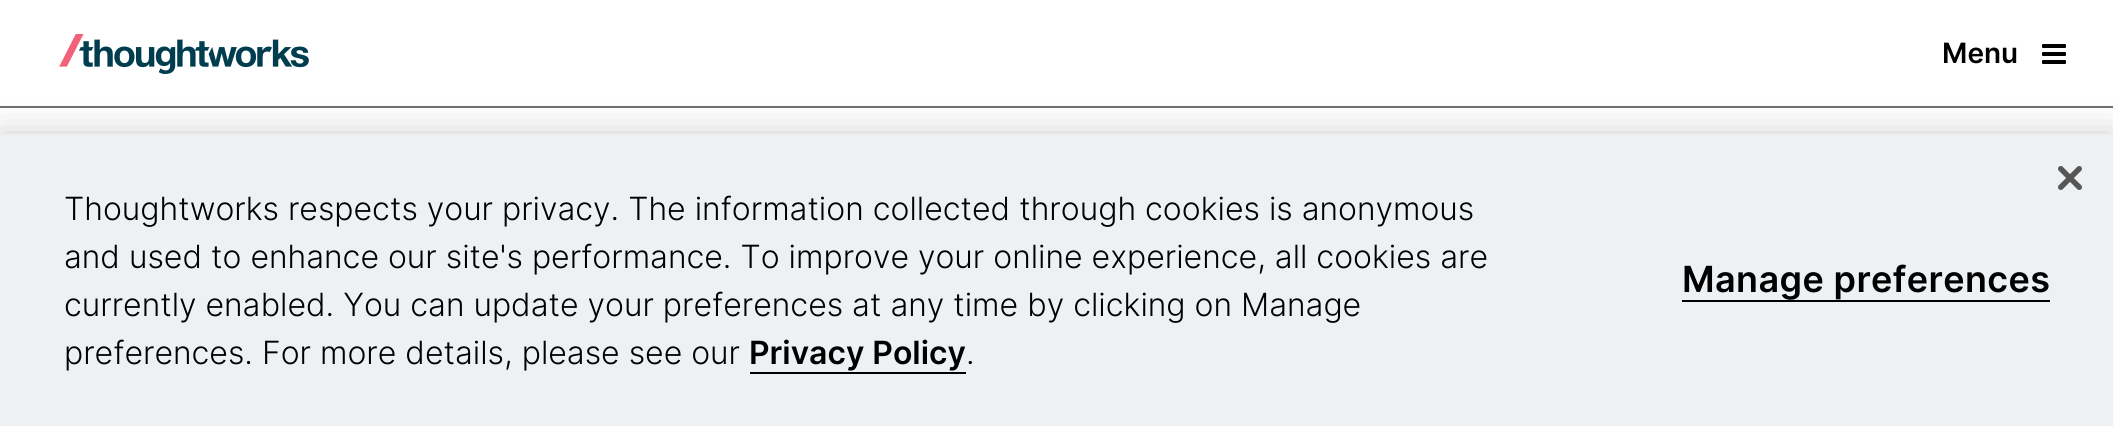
import math
import cairo

surface = cairo.ImageSurface(cairo.Format.RGB24, 2113, 426)
ctx = cairo.Context(surface)
options = cairo.FontOptions()
options.set_hint_metrics(cairo.HintMetrics.OFF)
options.set_hint_style(cairo.HintStyle.NONE)
ctx.set_font_options(options)
ctx.set_miter_limit(4)


def ink(r, g, b):
    ctx.set_source_rgb(r / 255, g / 255, b / 255)


def write(x, y, s, family, size, color, bold=False, italic=False):
    ctx.select_font_face(family, cairo.FontSlant.ITALIC if italic else cairo.FontSlant.NORMAL, cairo.FontWeight.BOLD if bold else cairo.FontWeight.NORMAL)
    ctx.set_font_size(size)
    ink(*color)
    ctx.move_to(x, y)
    ctx.show_text(s)


def write_spaced(x, y, s, letter, word):
    ctx.move_to(x, y)
    for ch in s:
        ctx.show_text(ch)
        ctx.rel_move_to(letter + word * (ch == ' '), 0)


def block(x, y, w, h, *color):
    ink(*color)
    ctx.rectangle(x, y, w, h)
    ctx.fill()


def round_path(x, y, w, h, r):
    ctx.new_sub_path()
    for i, (u, v) in enumerate([(x + w - r, y + h - r), (x + r, y + h - r), (x + r, y + r), (x + w - r, y + r)]):
        ctx.arc(u, v, r, i * math.pi / 2, (i + 1) * math.pi / 2)
    ctx.close_path()


def blur_box(x, y, w, h, r, blur, alpha):
    ctx.push_group_with_content(cairo.Content.ALPHA)
    ctx.set_operator(cairo.Operator.SOURCE)
    for i in range(15, -16, -2):
        e = blur * i / 6
        if min(w, h) + 2 * e > 0:
            ctx.set_source_rgba(0, 0, 0, alpha * math.erfc((i - 1) / 8.5) / 2)
            round_path(x - e, y - e, w + 2 * e, h + 2 * e, max(0, min(r + e + blur * .6, min(w, h) / 2 + e)))
            ctx.fill()
    ctx.mask(ctx.pop_group())


def paste(path, x, y, w, h):
    ctx.save()
    ctx.set_source_surface(cairo.ImageSurface.create_from_png(path), x, y)
    ctx.rectangle(x, y, w, h)
    ctx.fill()
    ctx.restore()


s1 = dict(family="Inter SemiBold", size=28, color=(0, 0, 0))
s2 = dict(family="Inter Light", size=32, color=(0, 0, 0))
s3 = dict(family="Inter SemiBold", size=32, color=(0, 0, 0))

ink(255, 255, 255)
ctx.paint()
block(0, 106, 2113, 2, 112, 112, 112)
paste("pic1.png", 59, 34, 250, 40)
write(1942, 63, "Menu", **s1)
paste("pic2.png", 2042, 44, 24, 20)
ink(0, 0, 0)
blur_box(0, 134, 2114, 292, 0, 18, 0.2)
block(0, 134, 2113, 292, 237, 241, 243)
paste("pic3.png", 2058, 166, 24, 24)
write(64, 220, "Thoughtworks respects your privacy. The information collected through cookies is anonymous", **s2)
write(64, 268, "and used to enhance our site's performance. To improve your online experience, all cookies are", **s2)
write(64, 316, "currently enabled. You can update your preferences at any time by clicking on Manage", **s2)
write(64, 364, "preferences. For more details, please see our", **s2)
write(749, 364, "Privacy Policy", **s3)
block(750, 372, 216, 2, 0, 0, 0)
write(966, 364, ".", **s2)
ctx.select_font_face("Inter SemiBold")
ctx.set_font_size(36)
write_spaced(1682, 292, "Manage preferences", 0.4, 0)
block(1682, 300, 368, 2, 0, 0, 0)
surface.write_to_png("screenshot.png")
